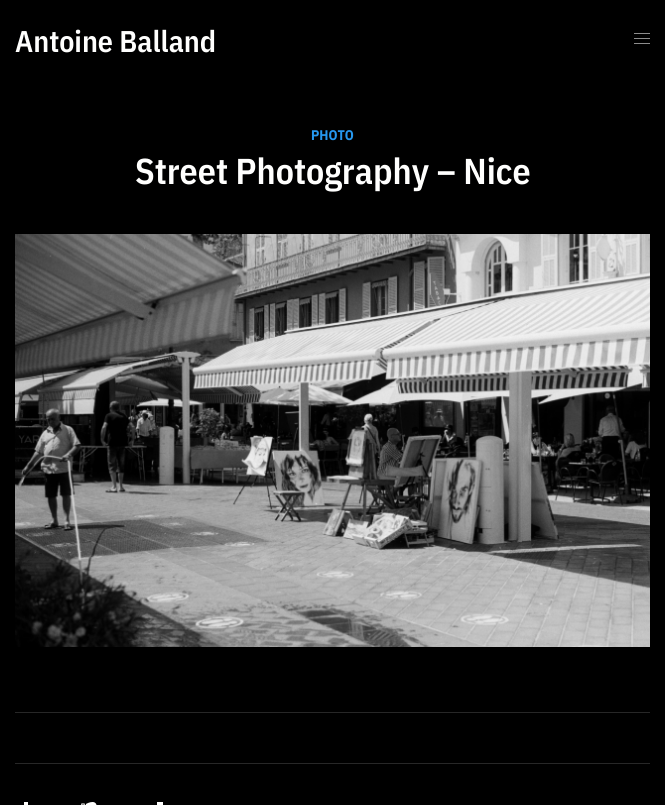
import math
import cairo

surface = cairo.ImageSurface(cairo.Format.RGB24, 665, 805)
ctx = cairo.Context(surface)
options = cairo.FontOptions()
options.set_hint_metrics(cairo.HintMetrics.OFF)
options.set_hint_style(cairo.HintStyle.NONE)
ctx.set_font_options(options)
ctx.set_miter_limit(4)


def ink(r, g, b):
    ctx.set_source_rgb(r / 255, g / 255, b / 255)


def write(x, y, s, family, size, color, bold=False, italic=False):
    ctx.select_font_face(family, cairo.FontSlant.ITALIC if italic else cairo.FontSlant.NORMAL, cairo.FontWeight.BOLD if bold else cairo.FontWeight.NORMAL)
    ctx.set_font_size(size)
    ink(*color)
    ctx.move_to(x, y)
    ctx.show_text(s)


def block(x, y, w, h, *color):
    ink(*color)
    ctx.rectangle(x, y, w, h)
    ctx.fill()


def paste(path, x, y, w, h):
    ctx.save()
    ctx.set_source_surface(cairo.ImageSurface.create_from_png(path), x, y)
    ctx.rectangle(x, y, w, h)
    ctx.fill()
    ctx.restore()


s1 = dict(family="IBM Plex Sans Condensed SemiBold", size=30, color=(255, 255, 254))
s2 = dict(family="IBM Plex Sans Condensed", size=14, color=(38, 152, 239), bold=True)
s3 = dict(family="IBM Plex Sans Condensed SemiBold", size=36, color=(255, 255, 254))

ink(0, 0, 0)
ctx.paint()
write(15, 52, "Antoine Balland", **s1)
block(634, 33, 16, 1, 140, 140, 140)
block(634, 38, 16, 1, 140, 140, 140)
block(634, 43, 16, 1, 140, 140, 140)
write(311, 140, "PHOTO", **s2)
write(135, 184, "Street Photography – Nice", **s3)
paste("pic1.png", 15, 234, 635, 413)
block(15, 712, 635, 1, 39, 39, 39)
block(15, 763, 635, 1, 39, 39, 39)
block(24, 802, 4, 3, 255, 255, 254)
paste("pic2.png", 81, 802, 16, 3)
block(157, 802, 6, 3, 255, 255, 254)
surface.write_to_png("screenshot.png")
